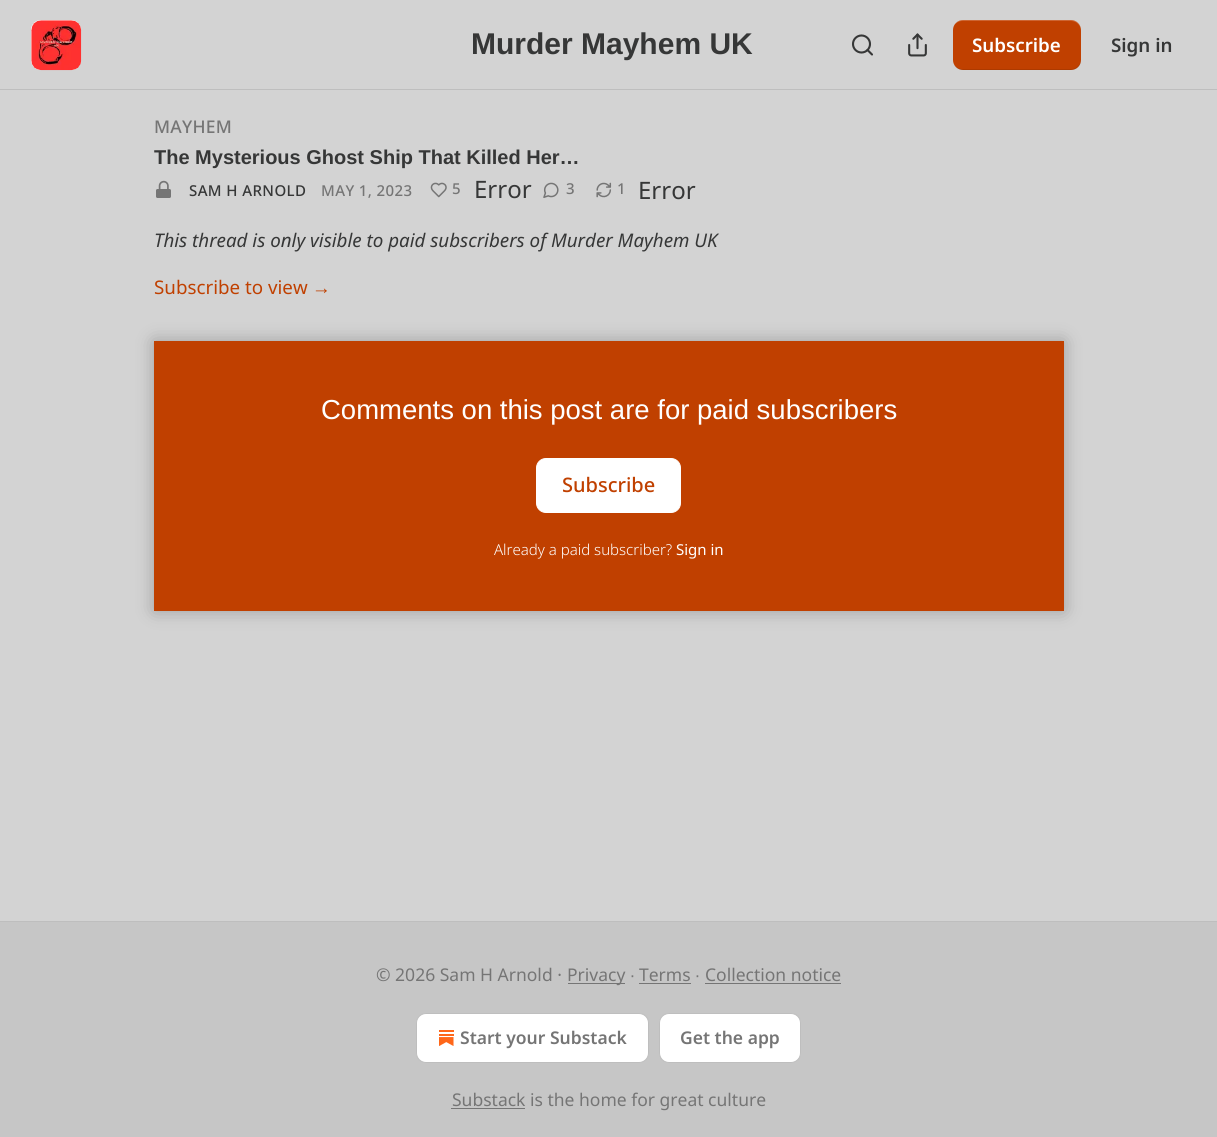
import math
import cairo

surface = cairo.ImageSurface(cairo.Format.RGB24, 1217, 1137)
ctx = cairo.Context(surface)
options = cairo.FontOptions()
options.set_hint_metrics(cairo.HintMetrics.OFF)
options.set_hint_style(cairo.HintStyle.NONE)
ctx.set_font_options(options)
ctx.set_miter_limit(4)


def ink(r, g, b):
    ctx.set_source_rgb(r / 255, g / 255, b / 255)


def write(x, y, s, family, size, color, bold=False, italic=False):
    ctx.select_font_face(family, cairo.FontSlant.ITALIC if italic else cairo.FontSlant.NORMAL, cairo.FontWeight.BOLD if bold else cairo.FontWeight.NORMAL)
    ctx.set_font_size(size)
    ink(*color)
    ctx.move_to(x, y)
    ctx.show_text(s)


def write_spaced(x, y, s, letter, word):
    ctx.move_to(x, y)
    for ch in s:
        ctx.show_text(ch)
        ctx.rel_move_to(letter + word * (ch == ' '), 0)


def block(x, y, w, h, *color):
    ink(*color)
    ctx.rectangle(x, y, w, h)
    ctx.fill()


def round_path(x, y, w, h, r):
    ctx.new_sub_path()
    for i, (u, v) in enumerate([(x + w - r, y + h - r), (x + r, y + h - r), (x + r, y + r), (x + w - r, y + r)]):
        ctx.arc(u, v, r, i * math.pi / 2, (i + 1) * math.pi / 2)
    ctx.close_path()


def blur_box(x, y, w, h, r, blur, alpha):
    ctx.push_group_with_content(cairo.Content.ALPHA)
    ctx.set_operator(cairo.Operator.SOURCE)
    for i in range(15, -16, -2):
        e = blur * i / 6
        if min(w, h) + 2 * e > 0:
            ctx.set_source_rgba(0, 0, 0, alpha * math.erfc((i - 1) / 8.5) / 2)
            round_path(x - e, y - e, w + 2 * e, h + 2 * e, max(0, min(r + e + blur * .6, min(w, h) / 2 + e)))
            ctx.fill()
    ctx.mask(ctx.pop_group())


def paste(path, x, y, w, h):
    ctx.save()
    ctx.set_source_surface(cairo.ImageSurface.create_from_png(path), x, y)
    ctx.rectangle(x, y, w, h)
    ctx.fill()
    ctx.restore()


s1 = dict(family="Liberation Sans", size=30, color=(54, 55, 55), bold=True)
s2 = dict(family="Noto Sans SemiBold", size=18.75, color=(255, 255, 255))
s3 = dict(family="Noto Sans SemiBold", size=18.75, color=(54, 55, 55))
s4 = dict(family="Liberation Sans", size=20, color=(54, 55, 55), bold=True)
s5 = dict(family="Noto Sans", size=24, color=(54, 55, 55))
s6 = dict(family="Noto Sans", size=18.75, color=(54, 55, 55), italic=True)
s7 = dict(family="Noto Sans", size=18.75, color=(192, 64, 0))
s8 = dict(family="Liberation Sans", size=18.75, color=(192, 64, 0))
s9 = dict(family="Liberation Sans", size=27.5, color=(255, 255, 255))
s10 = dict(family="Noto Sans Medium", size=20, color=(192, 64, 0))
s11 = dict(family="Noto Sans Light", size=15, color=(255, 255, 255))
s12 = dict(family="Noto Sans", size=15, color=(255, 255, 255))
s13 = dict(family="Noto Sans", size=17.5, color=(117, 117, 117))
s14 = dict(family="Liberation Sans", size=17.5, color=(117, 117, 117))
s15 = dict(family="Noto Sans SemiBold", size=17.5, color=(117, 117, 117))

ink(211, 211, 211)
ctx.paint()
block(0, 89, 1217, 1, 190, 190, 190)
ink(255, 255, 255)
round_path(31, 20, 50, 50, 10)
ctx.fill()
paste("pic1.png", 31, 20, 51, 51)
write(471, 54, "Murder Mayhem UK", **s1)
ctx.new_path()
ctx.arc(861.5, 44, 8.5, 0, 2 * math.pi)
ctx.set_line_width(2.1)
ctx.stroke()
ctx.new_path()
ctx.move_to(872, 54.5)
ctx.line_to(867.5, 50)
ctx.set_line_cap(cairo.LineCap.ROUND)
ctx.set_line_join(cairo.LineJoin.ROUND)
ctx.stroke()
paste("pic2.png", 908, 33, 19, 24)
ink(192, 64, 0)
round_path(953, 20, 128, 50, 10)
ctx.fill()
ctx.set_source_rgba(0, 0, 0, 0.1)
ctx.new_path()
ctx.move_to(954, 65)
ctx.curve_to(956, 68, 959, 70, 963, 70)
ctx.line_to(1071, 70)
ctx.curve_to(1077, 70, 1081, 66, 1081, 60)
ctx.line_to(1081, 59)
ctx.curve_to(1081, 64, 1077, 69, 1071, 69)
ctx.line_to(962, 69)
ctx.curve_to(959, 69, 956, 67, 954, 65)
ctx.close_path()
ctx.fill()
ctx.set_source_rgba(1, 1, 1, 0.2)
ctx.new_path()
ctx.move_to(962, 21)
ctx.line_to(1071, 21)
ctx.curve_to(1077, 21, 1081, 26, 1081, 31)
ctx.line_to(1081, 30)
ctx.curve_to(1081, 24, 1077, 20, 1071, 20)
ctx.line_to(963, 20)
ctx.curve_to(959, 20, 956, 22, 954, 25)
ctx.curve_to(956, 23, 959, 21, 962, 21)
ctx.close_path()
ctx.fill()
write(972, 52, "Subscribe", **s2)
write(1111, 52, "Sign in", **s3)
ctx.select_font_face("Noto Sans Medium")
ctx.set_font_size(17.5)
ink(117, 117, 117)
write_spaced(154, 133, "MAYHEM", 0.25, 0)
write(154, 164, "The Mysterious Ghost Ship That Killed Her…", **s4)
paste("pic3.png", 156, 180, 15, 18)
ctx.select_font_face("Noto Sans Medium")
ctx.set_font_size(15)
write_spaced(189, 196, "SAM H ARNOLD", 0.4, 0)
ink(117, 117, 117)
write_spaced(321, 196, "MAY 1, 2023", 0.4, 0)
paste("pic4.png", 430, 182, 17, 16)
write_spaced(452, 194, "5", 0.4, 0)
write(474, 198, "Error", **s5)
paste("pic5.png", 543, 182, 16, 16)
ctx.select_font_face("Noto Sans Medium")
ctx.set_font_size(15)
ink(117, 117, 117)
write_spaced(566, 194, "3", 0.4, 0)
paste("pic6.png", 596, 182, 16, 16)
write_spaced(617, 194, "1", 0.4, 0)
write(638, 199, "Error", **s5)
write(154, 247, "This thread is only visible to paid subscribers of Murder Mayhem UK", **s6)
write(154, 294, "Subscribe to view", **s7)
write(312, 294, "→", **s8)
block(154, 341, 910, 270, 192, 64, 0)
ink(255, 255, 255)
round_path(536.5, 458.5, 144, 54, 9.5)
ctx.fill_preserve()
ctx.set_line_width(1)
ctx.set_line_cap(cairo.LineCap.BUTT)
ctx.set_line_join(cairo.LineJoin.MITER)
ctx.stroke()
ctx.save()
ctx.set_fill_rule(cairo.FillRule.EVEN_ODD)
ctx.new_path()
ctx.move_to(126, 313)
ctx.line_to(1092, 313)
ctx.line_to(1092, 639)
ctx.line_to(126, 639)
ctx.close_path()
ctx.move_to(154, 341)
ctx.line_to(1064, 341)
ctx.line_to(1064, 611)
ctx.line_to(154, 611)
ctx.close_path()
ctx.clip()
ink(0, 0, 0)
blur_box(154, 341, 910, 270, 0, 9, 0.25)
ctx.restore()
write(321, 419, "Comments on this post are for paid subscribers", **s9)
write(562, 492, "Subscribe", **s10)
write(494, 555, "Already a paid subscriber?", **s11)
write(676, 555, "Sign in", **s12)
block(0, 922, 1217, 215, 198, 198, 198)
block(0, 921, 1217, 1, 190, 190, 190)
write(376, 981, "© 2026 Sam H Arnold ·", **s13)
block(568, 983, 57, 1, 117, 117, 117)
write(567, 981, "Privacy", **s13)
write(630, 981, "∙", **s14)
write(639, 981, "Terms", **s13)
block(639, 983, 52, 1, 117, 117, 117)
write(695, 981, "∙", **s14)
write(705, 981, "Collection notice", **s13)
block(705, 983, 136, 1, 117, 117, 117)
ink(255, 255, 255)
round_path(416.5, 1013.5, 232, 49, 9.5)
ctx.fill_preserve()
ink(190, 190, 190)
ctx.stroke()
paste("pic7.png", 439, 1030, 15, 16)
write(460, 1044, "Start your Substack", **s15)
ink(255, 255, 255)
round_path(659.5, 1013.5, 141, 49, 9.5)
ctx.fill_preserve()
ink(190, 190, 190)
ctx.stroke()
write(680, 1044, "Get the app", **s15)
block(451, 1108, 74, 1, 117, 117, 117)
write(452, 1106, "Substack is the home for great culture", **s13)
surface.write_to_png("screenshot.png")
